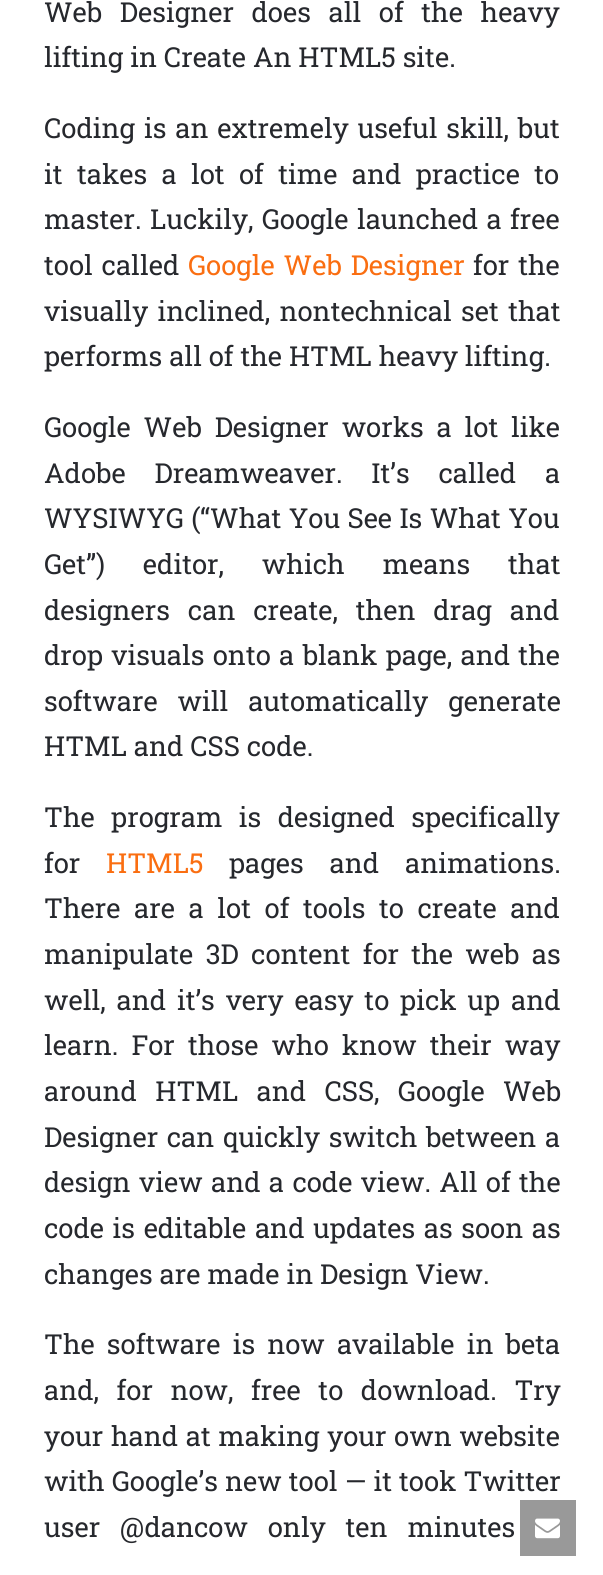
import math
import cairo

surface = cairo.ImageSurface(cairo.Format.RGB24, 603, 1575)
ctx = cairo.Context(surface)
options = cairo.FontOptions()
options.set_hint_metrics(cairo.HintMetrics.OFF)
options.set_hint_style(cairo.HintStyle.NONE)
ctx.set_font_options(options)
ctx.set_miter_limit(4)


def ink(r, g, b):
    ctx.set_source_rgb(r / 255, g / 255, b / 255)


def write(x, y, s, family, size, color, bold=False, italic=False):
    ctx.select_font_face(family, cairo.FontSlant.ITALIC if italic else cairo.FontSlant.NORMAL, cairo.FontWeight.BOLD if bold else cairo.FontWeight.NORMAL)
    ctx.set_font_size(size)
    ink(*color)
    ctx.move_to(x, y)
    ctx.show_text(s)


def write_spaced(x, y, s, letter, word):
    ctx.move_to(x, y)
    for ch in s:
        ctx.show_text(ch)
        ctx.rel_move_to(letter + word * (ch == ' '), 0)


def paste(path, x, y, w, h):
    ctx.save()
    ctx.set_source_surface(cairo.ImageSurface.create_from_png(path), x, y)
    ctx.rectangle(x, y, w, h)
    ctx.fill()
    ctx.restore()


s1 = dict(family="Roboto Slab", size=27.5, color=(38, 40, 45))
s2 = dict(family="Roboto Slab", size=27.5, color=(250, 110, 17))

ink(255, 255, 255)
ctx.paint()
ctx.select_font_face("Roboto Slab")
ctx.set_font_size(27.5)
ink(38, 40, 45)
write_spaced(44, 22, "Web Designer does all of the heavy", 0, 10.75)
write(44, 67, "lifting in Create An HTML5 site.", **s1)
write_spaced(44, 138, "Coding is an extremely useful skill, but", 0, 2)
write_spaced(44, 184, "it takes a lot of time and practice to", 0, 7.5)
write_spaced(44, 229, "master. Luckily, Google launched a free", 0, 1.5)
write_spaced(44, 275, "tool called", 0, 2)
ink(250, 110, 17)
write_spaced(188, 275, "Google Web Designer", 0, 2)
ink(38, 40, 45)
write_spaced(473, 275, "for the", 0, 2)
write_spaced(44, 321, "visually inclined, nontechnical set that", 0, 2.5)
write(44, 366, "performs all of the HTML heavy lifting.", **s1)
write_spaced(44, 437, "Google Web Designer works a lot like", 0, 6)
write_spaced(44, 483, "Adobe Dreamweaver. It’s called a", 0, 22)
write_spaced(44, 528, "WYSIWYG (“What You See Is What You", 0, 0.5)
write_spaced(44, 574, "Get”) editor, which means that", 0, 31)
write_spaced(44, 620, "designers can create, then drag and", 0, 11)
write_spaced(44, 665, "drop visuals onto a blank page, and the", 0, 1.5)
write_spaced(44, 711, "software will automatically generate", 0, 13)
write(44, 756, "HTML and CSS code.", **s1)
write_spaced(44, 827, "The program is designed specifically", 0, 9.5)
write(44, 873, "for", **s1)
write(106, 873, "HTML5", **s2)
ink(38, 40, 45)
write_spaced(229, 873, "pages and animations.", 0, 19)
write_spaced(44, 918, "There are a lot of tools to create and", 0, 6.75)
write_spaced(44, 964, "manipulate 3D content for the web as", 0, 5.5)
write_spaced(44, 1010, "well, and it’s very easy to pick up and", 0, 4)
write_spaced(44, 1055, "learn. For those who know their way", 0, 6.25)
write_spaced(44, 1101, "around HTML and CSS, Google Web", 0, 11.5)
write_spaced(44, 1147, "Designer can quickly switch between a", 0, 1.75)
write_spaced(44, 1192, "design view and a code view. All of the", 0, 1.5)
write_spaced(44, 1238, "code is editable and updates as soon as", 0, 1.75)
write(44, 1284, "changes are made in Design View.", **s1)
write_spaced(44, 1354, "The software is now available in beta", 0, 5.25)
write_spaced(44, 1400, "and, for now, free to download. Try", 0, 10.75)
write_spaced(44, 1446, "your hand at making your own website", 0, 0.75)
write_spaced(44, 1491, "with Google’s new tool — it took Twitter", 0, 0.25)
write_spaced(44, 1537, "user @dancow only ten minutes", 0, 13)
ctx.set_source_rgba(0, 0, 0, 0.4)
ctx.rectangle(520, 1500, 56, 56)
ctx.fill()
paste("pic1.png", 535, 1518, 25, 21)
surface.write_to_png("screenshot.png")
